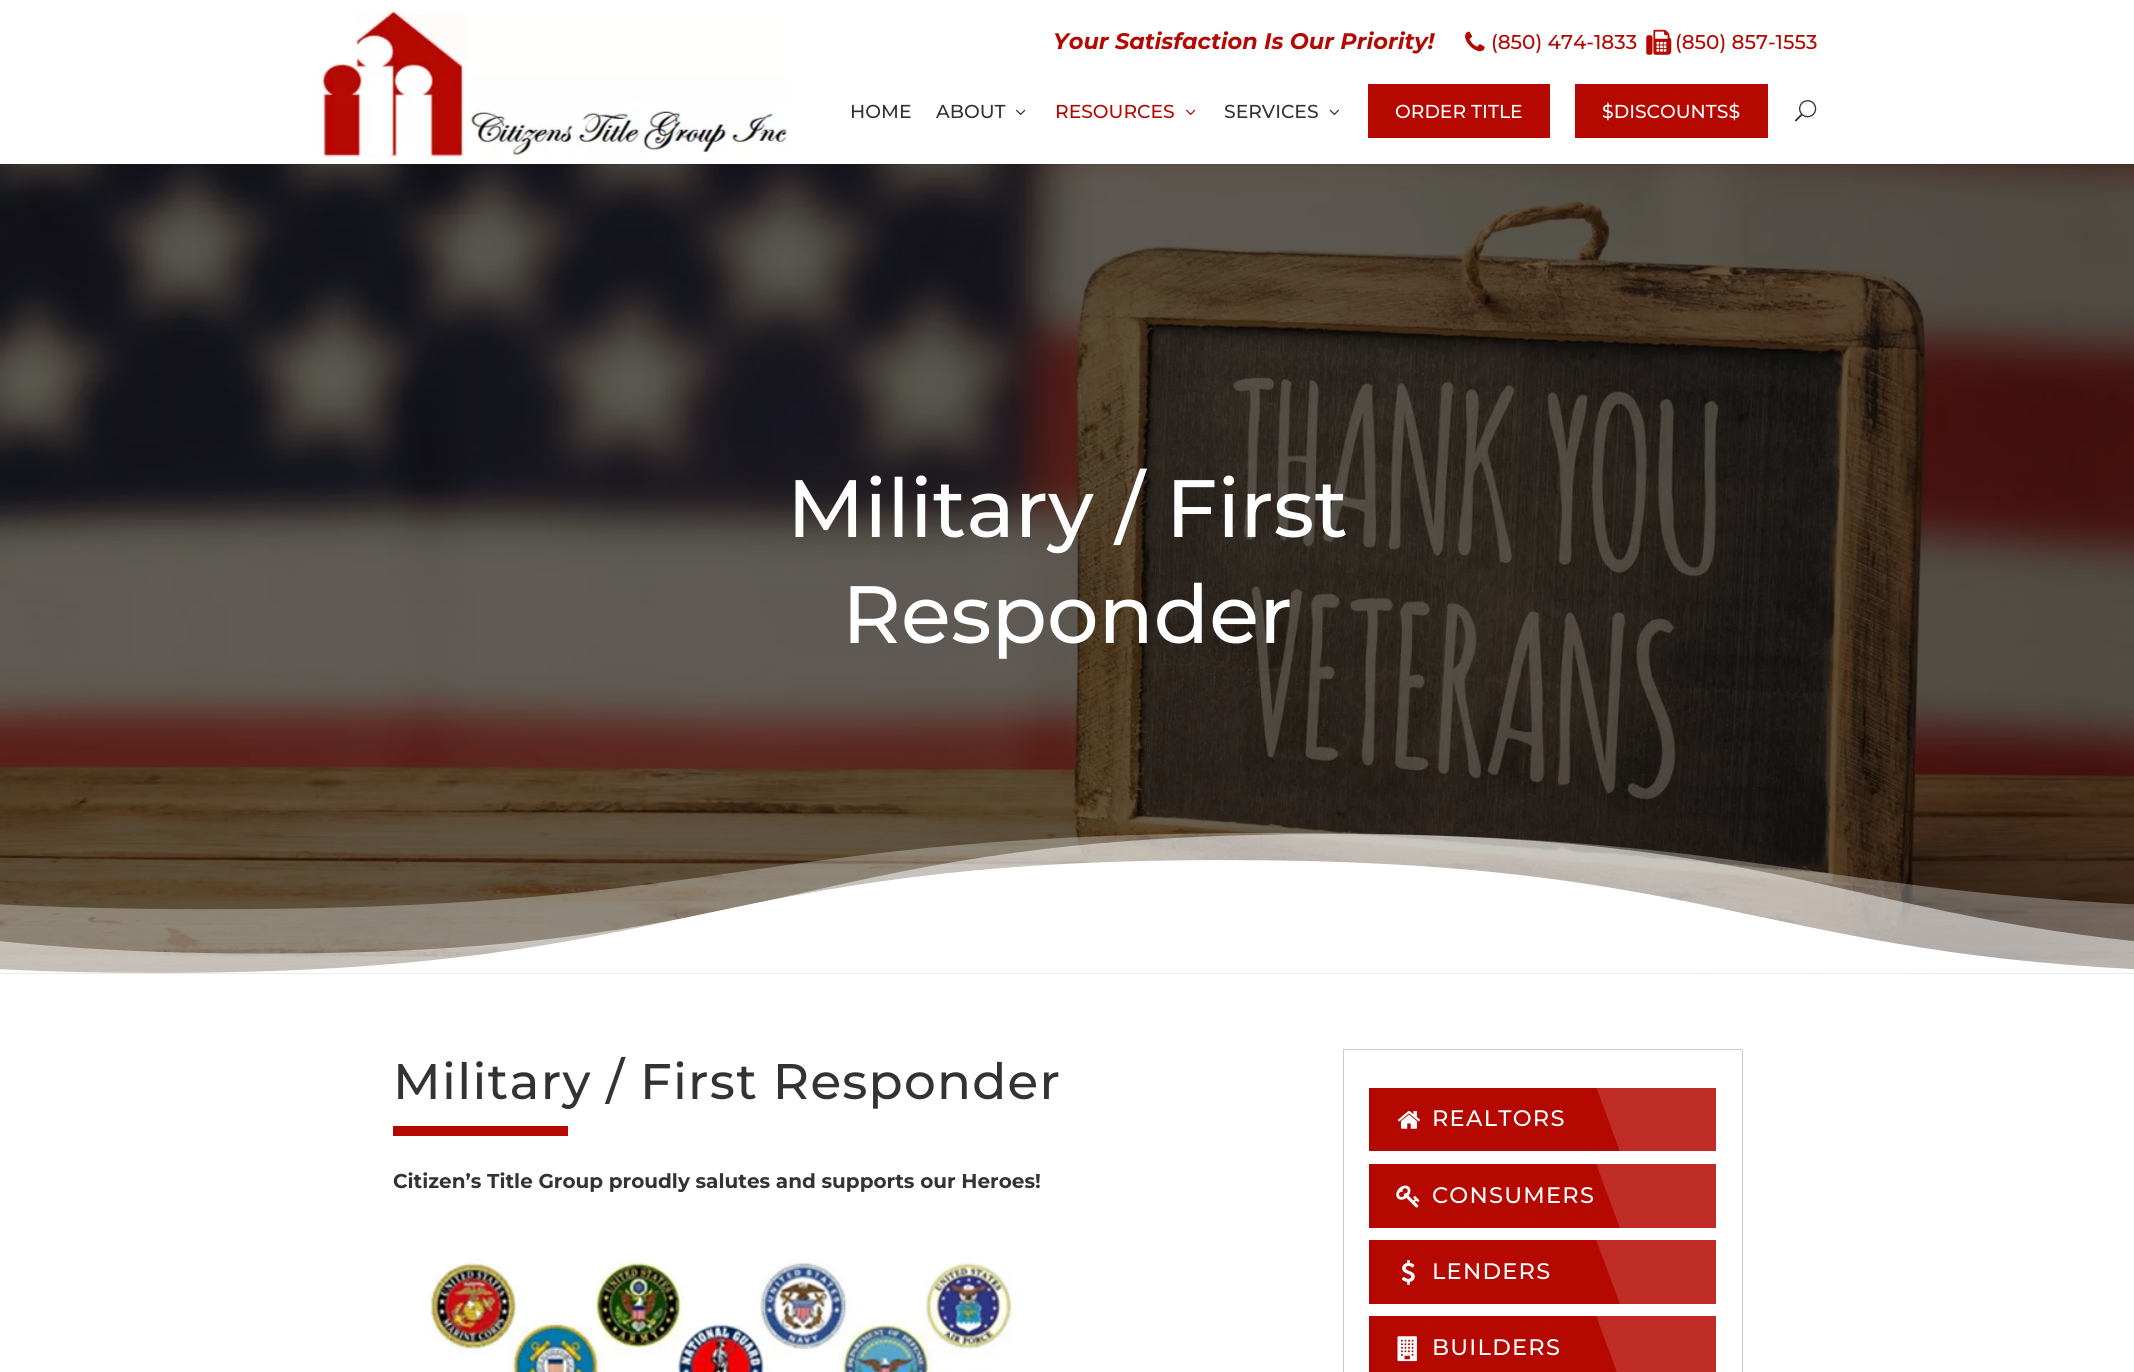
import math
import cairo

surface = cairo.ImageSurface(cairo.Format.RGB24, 2134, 1372)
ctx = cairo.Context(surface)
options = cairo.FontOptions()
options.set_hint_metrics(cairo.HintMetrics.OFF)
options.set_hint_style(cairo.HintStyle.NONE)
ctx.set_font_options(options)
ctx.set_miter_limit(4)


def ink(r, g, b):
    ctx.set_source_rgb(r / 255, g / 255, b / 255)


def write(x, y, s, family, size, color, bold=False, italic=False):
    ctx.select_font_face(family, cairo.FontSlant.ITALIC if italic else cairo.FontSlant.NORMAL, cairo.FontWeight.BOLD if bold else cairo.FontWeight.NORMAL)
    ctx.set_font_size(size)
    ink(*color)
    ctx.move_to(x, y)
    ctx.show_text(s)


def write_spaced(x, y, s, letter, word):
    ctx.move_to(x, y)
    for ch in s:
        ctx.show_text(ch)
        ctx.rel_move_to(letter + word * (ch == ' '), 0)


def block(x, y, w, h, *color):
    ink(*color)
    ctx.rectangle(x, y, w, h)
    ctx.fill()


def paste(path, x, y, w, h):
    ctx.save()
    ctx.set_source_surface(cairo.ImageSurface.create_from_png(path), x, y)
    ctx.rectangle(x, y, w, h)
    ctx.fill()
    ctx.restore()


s1 = dict(family="Montserrat Thin", size=22.5, color=(181, 8, 1), italic=True)
s2 = dict(family="Montserrat Thin", size=20, color=(181, 8, 1))
s3 = dict(family="Montserrat Thin", size=18.75, color=(51, 51, 51))
s4 = dict(family="Montserrat Thin", size=18.75, color=(181, 8, 1))
s5 = dict(family="Montserrat Thin", size=18.75, color=(255, 255, 255))
s6 = dict(family="Montserrat Thin", size=81.25, color=(255, 255, 255))
s7 = dict(family="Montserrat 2 Thin", size=20, color=(51, 51, 51))

ink(255, 255, 255)
ctx.paint()
write(1053, 49, "Your Satisfaction Is Our Priority!", **s1)
paste("pic1.png", 1465, 31, 20, 21)
write(1491, 49, "(850) 474-1833", **s2)
paste("pic2.png", 1646, 29, 26, 26)
write(1675, 49, "(850) 857-1553", **s2)
paste("pic8.png", 0, 164, 2134, 810)
ctx.set_source_rgba(0, 0, 0, 0.1)
ctx.rectangle(0, 164, 2134, 1)
ctx.fill()
paste("pic3.png", 317, 9, 470, 149)
write(850, 118, "HOME", **s3)
write(936, 118, "ABOUT", **s3)
paste("pic4.png", 1016, 109, 10, 6)
write(1055, 118, "RESOURCES", **s4)
paste("pic5.png", 1186, 109, 10, 6)
write(1224, 118, "SERVICES", **s3)
paste("pic6.png", 1329, 109, 10, 6)
block(1368, 84, 182, 54, 181, 8, 1)
write(1395, 118, "ORDER TITLE", **s5)
block(1575, 84, 193, 54, 181, 8, 1)
write(1602, 118, "$DISCOUNTS$", **s5)
paste("pic7.png", 1795, 100, 22, 22)
write(787, 537, "Military / First", **s6)
write(842, 643, "Responder", **s6)
paste("pic9.png", 0, 832, 2134, 142)
ctx.set_font_size(50)
ink(51, 51, 51)
write_spaced(393, 1099, "Military / First Responder", 1.25, 0)
block(393, 1126, 175, 10, 181, 8, 1)
write(393, 1188, "Citizen’s Title Group proudly salutes and supports our Heroes!", **s7)
paste("pic10.png", 427, 1257, 587, 115)
ctx.rectangle(1343.5, 1049.5, 399, 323)
ink(204, 204, 204)
ctx.set_line_width(1)
ctx.stroke()
block(1369, 1088, 251, 63, 181, 8, 1)
paste("pic11.png", 1397, 1111, 23, 18)
ctx.select_font_face("Montserrat Thin")
ctx.set_font_size(22.5)
ink(255, 255, 255)
write_spaced(1432, 1126, "REALTORS", 1.25, 0)
ctx.save()
ctx.rectangle(1369, 1088, 347, 63)
ctx.clip()
ink(192, 45, 39)
ctx.new_path()
ctx.move_to(1594, 1081)
ctx.line_to(1709, 1040)
ctx.line_to(1772, 1213)
ctx.line_to(1658, 1255)
ctx.close_path()
ctx.fill()
ctx.restore()
block(1369, 1164, 251, 64, 181, 8, 1)
paste("pic12.png", 1396, 1185, 24, 23)
ink(255, 255, 255)
write_spaced(1432, 1203, "CONSUMERS", 1.25, 0)
ctx.save()
ctx.rectangle(1369, 1164, 347, 64)
ctx.clip()
ink(192, 45, 39)
ctx.new_path()
ctx.move_to(1594, 1158)
ctx.line_to(1709, 1116)
ctx.line_to(1772, 1290)
ctx.line_to(1658, 1331)
ctx.close_path()
ctx.fill()
ctx.restore()
block(1369, 1240, 251, 64, 181, 8, 1)
paste("pic13.png", 1401, 1260, 14, 25)
ink(255, 255, 255)
write_spaced(1432, 1279, "LENDERS", 1.25, 0)
ctx.save()
ctx.rectangle(1369, 1240, 347, 64)
ctx.clip()
ink(192, 45, 39)
ctx.new_path()
ctx.move_to(1594, 1234)
ctx.line_to(1709, 1192)
ctx.line_to(1772, 1366)
ctx.line_to(1658, 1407)
ctx.close_path()
ctx.fill()
ctx.restore()
block(1369, 1316, 248, 56, 181, 8, 1)
paste("pic14.png", 1397, 1336, 20, 26)
ink(255, 255, 255)
write_spaced(1432, 1355, "BUILDERS", 1.25, 0)
ctx.save()
ctx.rectangle(1369, 1316, 347, 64)
ctx.clip()
ink(192, 45, 39)
ctx.new_path()
ctx.move_to(1594, 1310)
ctx.line_to(1709, 1268)
ctx.line_to(1772, 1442)
ctx.line_to(1658, 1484)
ctx.close_path()
ctx.fill()
ctx.restore()
surface.write_to_png("screenshot.png")
